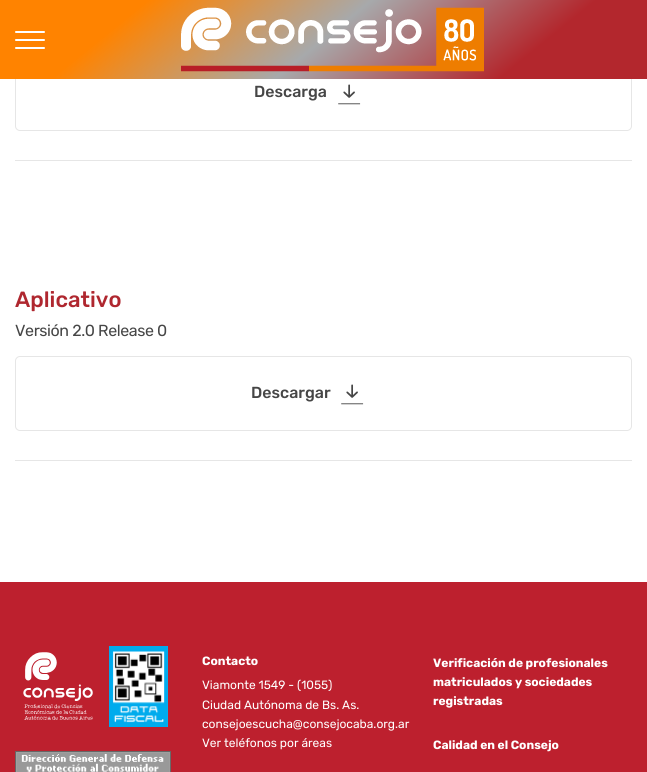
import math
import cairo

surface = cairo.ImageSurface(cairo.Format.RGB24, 647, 772)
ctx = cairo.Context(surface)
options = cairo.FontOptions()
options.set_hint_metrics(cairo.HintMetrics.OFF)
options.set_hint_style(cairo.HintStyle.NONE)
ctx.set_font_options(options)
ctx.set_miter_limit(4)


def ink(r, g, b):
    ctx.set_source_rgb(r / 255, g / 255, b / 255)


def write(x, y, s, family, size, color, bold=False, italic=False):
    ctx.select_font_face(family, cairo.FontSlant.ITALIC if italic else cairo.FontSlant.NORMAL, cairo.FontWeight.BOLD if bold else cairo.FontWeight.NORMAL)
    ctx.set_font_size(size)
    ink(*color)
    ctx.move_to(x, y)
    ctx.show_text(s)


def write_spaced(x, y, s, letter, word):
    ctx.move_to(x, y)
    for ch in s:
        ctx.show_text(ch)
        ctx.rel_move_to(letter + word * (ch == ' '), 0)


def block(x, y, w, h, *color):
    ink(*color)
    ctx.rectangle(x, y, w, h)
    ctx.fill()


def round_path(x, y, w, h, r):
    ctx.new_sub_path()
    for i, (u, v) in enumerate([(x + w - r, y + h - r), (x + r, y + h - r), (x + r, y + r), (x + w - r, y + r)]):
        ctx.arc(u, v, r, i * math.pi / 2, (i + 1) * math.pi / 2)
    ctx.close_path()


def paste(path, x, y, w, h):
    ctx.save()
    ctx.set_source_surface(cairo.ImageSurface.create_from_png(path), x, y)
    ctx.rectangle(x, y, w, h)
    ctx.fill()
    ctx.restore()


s1 = dict(family="Rubik Medium", size=16, color=(70, 70, 70))
s2 = dict(family="Rubik Medium", size=22, color=(175, 39, 47))
s3 = dict(family="Rubik", size=12, color=(255, 255, 255), bold=True)
s4 = dict(family="Rubik", size=12, color=(255, 255, 255))

ink(255, 255, 255)
ctx.paint()
round_path(15.5, 56.5, 616, 74, 4.5)
ink(230, 230, 230)
ctx.set_line_width(1)
ctx.stroke()
gradient = cairo.LinearGradient(176, -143, 471, 222)
gradient.add_color_stop_rgba(0.2, 1, 0.514, 0, 1)
gradient.add_color_stop_rgba(0.5, 0.655, 0.663, 0.671, 1)
gradient.add_color_stop_rgba(0.8, 0.702, 0.153, 0.176, 1)
ctx.set_source(gradient)
ctx.rectangle(0, 0, 647, 79)
ctx.fill()
ink(255, 255, 255)
round_path(15, 31, 30, 2, 1)
ctx.fill()
round_path(15, 39, 30, 2, 1)
ctx.fill()
round_path(15, 47, 30, 2, 1)
ctx.fill()
paste("pic1.png", 181, 7, 303, 65)
block(15, 160, 617, 1, 230, 230, 230)
write(254, 97, "Descarga", **s1)
paste("pic2.png", 338, 84, 23, 21)
block(15, 460, 617, 1, 230, 230, 230)
write(15, 307, "Aplicativo", **s2)
ctx.select_font_face("Rubik")
ctx.set_font_size(16)
ink(70, 70, 70)
write_spaced(15, 336, "Versión 2.0 Release 0", -0.4, 0)
round_path(15.5, 356.5, 616, 74, 4.5)
ink(230, 230, 230)
ctx.stroke()
write(251, 398, "Descargar", **s1)
paste("pic2.png", 341, 384, 23, 21)
block(0, 582, 647, 190, 189, 32, 46)
paste("pic3.png", 23, 652, 70, 68)
paste("pic4.png", 109, 646, 59, 81)
paste("pic5.png", 15, 751, 156, 21)
write(202, 665, "Contacto", **s3)
write(202, 689, "Viamonte 1549 - (1055)", **s4)
write(202, 709, "Ciudad Autónoma de Bs. As.", **s4)
write(202, 728, "consejoescucha@consejocaba.org.ar", **s4)
write(202, 747, "Ver teléfonos por áreas", **s4)
write(433, 667, "Verificación de profesionales", **s3)
write(433, 686, "matriculados y sociedades", **s3)
write(433, 705, "registradas", **s3)
write(433, 749, "Calidad en el Consejo", **s3)
surface.write_to_png("screenshot.png")
